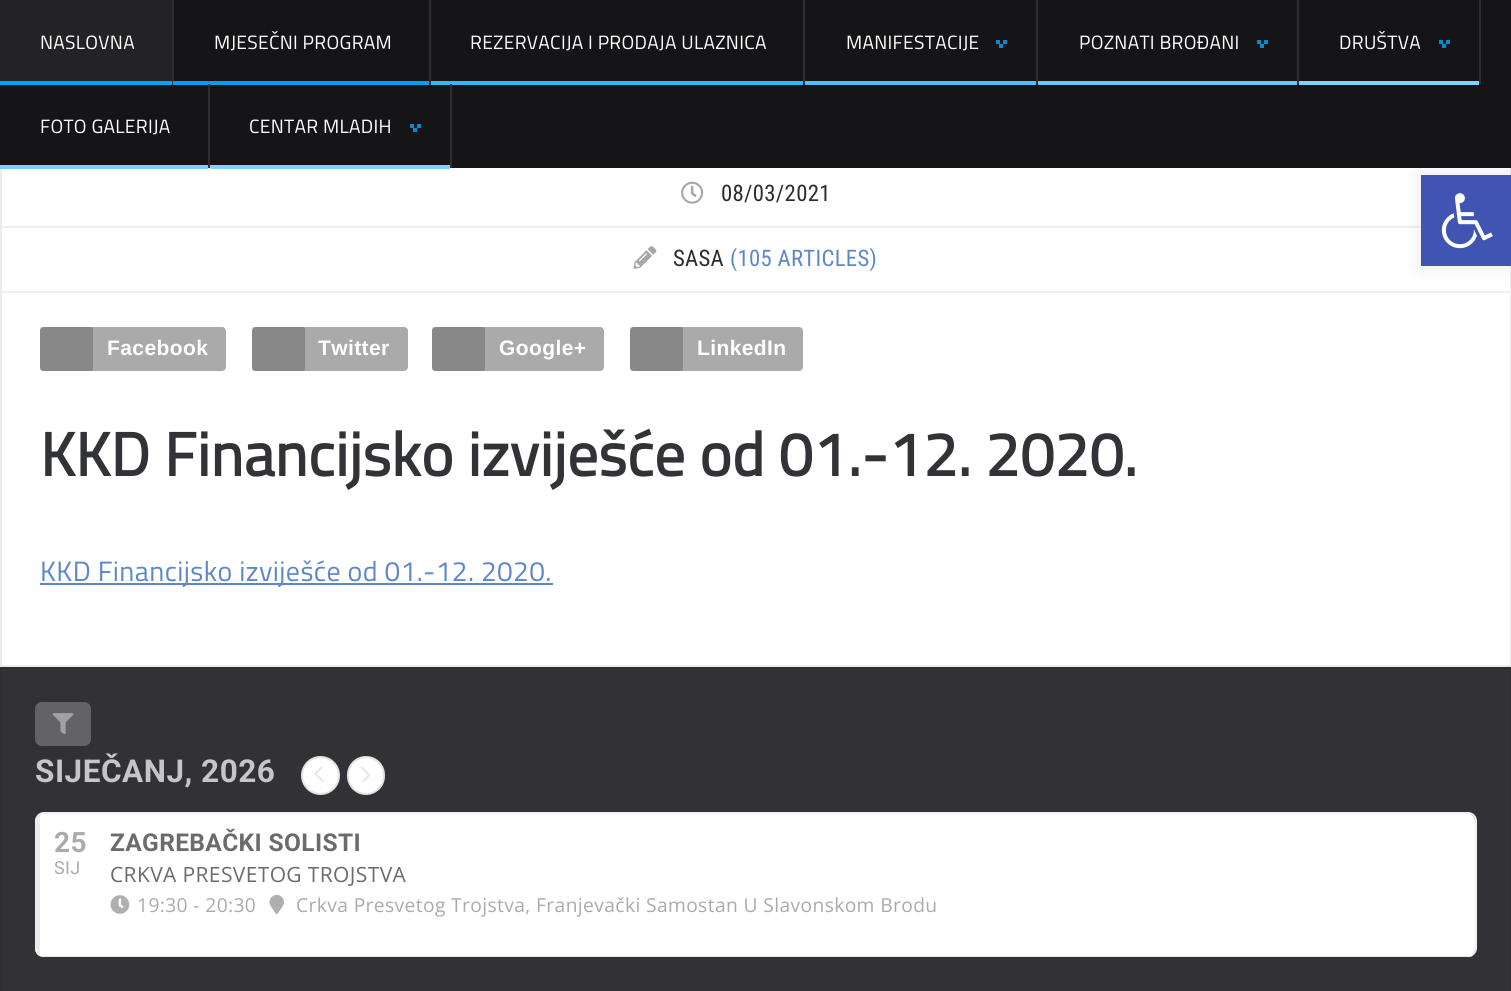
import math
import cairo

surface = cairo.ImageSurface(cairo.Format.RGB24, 1511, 991)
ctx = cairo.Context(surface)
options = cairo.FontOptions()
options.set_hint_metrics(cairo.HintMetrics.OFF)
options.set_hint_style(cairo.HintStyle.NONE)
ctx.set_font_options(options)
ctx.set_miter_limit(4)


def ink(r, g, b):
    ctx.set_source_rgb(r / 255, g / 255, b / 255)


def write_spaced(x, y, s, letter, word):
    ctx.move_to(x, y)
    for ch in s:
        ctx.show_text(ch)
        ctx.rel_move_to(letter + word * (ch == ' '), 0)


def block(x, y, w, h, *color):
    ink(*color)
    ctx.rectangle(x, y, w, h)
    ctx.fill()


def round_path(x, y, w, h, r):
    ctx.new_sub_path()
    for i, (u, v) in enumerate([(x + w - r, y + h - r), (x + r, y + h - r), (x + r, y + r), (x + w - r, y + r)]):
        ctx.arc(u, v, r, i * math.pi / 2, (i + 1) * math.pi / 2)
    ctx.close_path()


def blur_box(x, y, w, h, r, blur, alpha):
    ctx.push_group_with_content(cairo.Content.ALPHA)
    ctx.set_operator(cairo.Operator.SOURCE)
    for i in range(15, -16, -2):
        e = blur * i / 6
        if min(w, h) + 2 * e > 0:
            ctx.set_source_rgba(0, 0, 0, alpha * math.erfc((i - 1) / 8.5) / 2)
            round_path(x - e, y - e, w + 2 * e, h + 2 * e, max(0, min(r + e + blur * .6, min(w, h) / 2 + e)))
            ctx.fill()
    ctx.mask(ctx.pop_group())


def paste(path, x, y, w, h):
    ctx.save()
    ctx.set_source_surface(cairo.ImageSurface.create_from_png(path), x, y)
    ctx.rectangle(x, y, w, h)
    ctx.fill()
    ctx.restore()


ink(255, 255, 255)
ctx.paint()
ctx.rectangle(1, 164, 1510, 502)
ink(235, 235, 235)
ctx.stroke()
block(0, 0, 1511, 168, 21, 21, 23)
block(172, 0, 2, 84, 47, 47, 49)
block(0, 0, 172, 81, 35, 35, 37)
block(0, 81, 172, 4, 0, 165, 251)
ctx.select_font_face("Titillium Web")
ctx.set_font_size(19.25)
ink(255, 255, 255)
write_spaced(40, 49, "NASLOVNA", 0.3, 0)
block(429, 0, 2, 84, 47, 47, 49)
block(173, 81, 256, 4, 0, 159, 242)
ink(255, 255, 255)
write_spaced(214, 49, "MJESEČNI PROGRAM", 0.3, 0)
block(803, 0, 2, 84, 47, 47, 49)
block(431, 81, 372, 4, 51, 183, 251)
ink(255, 255, 255)
write_spaced(470, 49, "REZERVACIJA I PRODAJA ULAZNICA", 0.3, 0)
block(1036, 0, 2, 84, 47, 47, 49)
block(805, 81, 231, 4, 76, 192, 252)
ink(255, 255, 255)
write_spaced(846, 49, "MANIFESTACIJE", 0.3, 0)
block(996, 40, 4, 4, 7, 138, 208)
block(1003, 40, 4, 4, 7, 138, 208)
block(999, 44, 4, 4, 7, 138, 208)
block(1297, 0, 2, 84, 47, 47, 49)
block(1038, 81, 259, 4, 102, 201, 252)
ink(255, 255, 255)
write_spaced(1079, 49, "POZNATI BROĐANI", 0.3, 0)
block(1257, 40, 4, 4, 7, 138, 208)
block(1264, 40, 4, 4, 7, 138, 208)
block(1260, 44, 4, 4, 7, 138, 208)
block(1479, 0, 2, 84, 47, 47, 49)
block(1299, 81, 180, 4, 127, 210, 253)
ink(255, 255, 255)
write_spaced(1339, 49, "DRUŠTVA", 0.3, 0)
block(1439, 40, 4, 4, 7, 138, 208)
block(1446, 40, 4, 4, 7, 138, 208)
block(1442, 44, 4, 4, 7, 138, 208)
block(208, 84, 2, 84, 47, 47, 49)
block(0, 165, 208, 4, 125, 207, 249)
ink(255, 255, 255)
write_spaced(40, 133, "FOTO GALERIJA", 0.3, 0)
block(450, 84, 2, 84, 47, 47, 49)
block(210, 165, 240, 4, 127, 210, 253)
ink(255, 255, 255)
write_spaced(249, 133, "CENTAR MLADIH", 0.3, 0)
block(410, 124, 4, 4, 7, 138, 208)
block(417, 124, 4, 4, 7, 138, 208)
block(413, 128, 4, 4, 7, 138, 208)
block(0, 226, 1421, 2, 240, 240, 240)
paste("pic1.png", 681, 181, 23, 23)
ctx.select_font_face("Roboto Condensed")
ctx.set_font_size(22.75)
ink(43, 43, 50)
write_spaced(721, 201, "08/03/2021", 0.3, 0)
block(0, 291, 1511, 2, 240, 240, 240)
paste("pic2.png", 633, 246, 24, 23)
ink(43, 43, 50)
write_spaced(673, 266, "SASA", 0.3, 0)
ink(93, 135, 199)
write_spaced(730, 266, "(105 ARTICLES)", 0.3, 0)
ink(170, 170, 170)
round_path(40, 327, 186, 44, 4)
ctx.fill()
ctx.set_source_rgba(0, 0, 0, 0.2)
round_path(40, 327, 53, 44, 2)
ctx.fill()
ctx.select_font_face("Liberation Sans", cairo.FontSlant.NORMAL, cairo.FontWeight.BOLD)
ctx.set_font_size(21)
ink(255, 255, 255)
write_spaced(107, 355, "Facebook", 0.4, 0)
ink(170, 170, 170)
round_path(252, 327, 156, 44, 4)
ctx.fill()
ctx.set_source_rgba(0, 0, 0, 0.2)
round_path(252, 327, 53, 44, 2)
ctx.fill()
ink(255, 255, 255)
write_spaced(318, 355, "Twitter", 0.4, 0)
ink(170, 170, 170)
round_path(432, 327, 172, 44, 4)
ctx.fill()
ctx.set_source_rgba(0, 0, 0, 0.2)
round_path(432, 327, 53, 44, 2)
ctx.fill()
ink(255, 255, 255)
write_spaced(499, 355, "Google+", 0.4, 0)
ink(170, 170, 170)
round_path(630, 327, 173, 44, 4)
ctx.fill()
ctx.set_source_rgba(0, 0, 0, 0.2)
round_path(630, 327, 53, 44, 2)
ctx.fill()
ink(255, 255, 255)
write_spaced(697, 355, "LinkedIn", 0.4, 0)
ctx.select_font_face("Titillium Web", cairo.FontSlant.NORMAL, cairo.FontWeight.BOLD)
ctx.set_font_size(61.25)
ink(50, 51, 54)
write_spaced(40, 476, "KKD Financijsko izviješće od 01.-12. 2020.", 0.35, 0)
block(40, 583, 513, 2, 93, 135, 199)
ctx.select_font_face("Titillium Web")
ctx.set_font_size(28)
write_spaced(40, 581, "KKD Financijsko izviješće od 01.-12. 2020.", 0.4, 0)
ink(50, 49, 54)
ctx.rectangle(1, 668, 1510, 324)
ctx.fill_preserve()
ink(46, 45, 50)
ctx.stroke()
ink(99, 99, 102)
round_path(35, 702, 56, 44, 7)
ctx.fill()
paste("pic3.png", 52, 713, 22, 21)
ctx.select_font_face("Roboto", cairo.FontSlant.NORMAL, cairo.FontWeight.BOLD)
ctx.set_font_size(31.5)
ink(198, 198, 198)
write_spaced(35, 782, "SIJEČANJ, 2026", 0.5, 0)
ink(255, 255, 255)
ctx.new_path()
ctx.arc(320.5, 775.5, 18.5, 0, 2 * math.pi)
ctx.fill_preserve()
ink(226, 226, 226)
ctx.stroke()
ink(227, 227, 227)
ctx.new_path()
ctx.move_to(314, 774)
ctx.line_to(321.5, 766.5)
ctx.line_to(323, 767.5)
ctx.line_to(315.5, 775)
ctx.close_path()
ctx.fill()
ctx.new_path()
ctx.move_to(315.5, 775)
ctx.line_to(316.5, 774)
ctx.line_to(324, 781)
ctx.line_to(323, 782.5)
ctx.close_path()
ctx.fill()
ink(255, 255, 255)
round_path(348, 757, 36, 37, 18)
ctx.fill_preserve()
ink(226, 226, 226)
ctx.stroke()
ink(227, 227, 227)
ctx.new_path()
ctx.move_to(370.5, 775)
ctx.line_to(363, 782.5)
ctx.line_to(362, 781)
ctx.line_to(369.5, 774)
ctx.close_path()
ctx.fill()
ctx.new_path()
ctx.move_to(369.5, 774)
ctx.line_to(368, 775)
ctx.line_to(360.5, 767.5)
ctx.line_to(362, 766.5)
ctx.close_path()
ctx.fill()
ink(241, 241, 241)
ctx.set_fill_rule(cairo.FillRule.EVEN_ODD)
ctx.new_path()
ctx.move_to(44, 812)
ctx.line_to(1468, 812)
ctx.curve_to(1473, 812, 1477, 816, 1477, 821)
ctx.line_to(1477, 948)
ctx.curve_to(1477, 953, 1473, 957, 1468, 957)
ctx.line_to(44, 957)
ctx.curve_to(39, 957, 35, 953, 35, 948)
ctx.line_to(35, 821)
ctx.curve_to(35, 816, 39, 812, 44, 812)
ctx.close_path()
ctx.move_to(44, 814)
ctx.line_to(1468, 814)
ctx.curve_to(1472, 814, 1475, 817, 1475, 821)
ctx.line_to(1475, 948)
ctx.curve_to(1475, 953, 1472, 957, 1468, 957)
ctx.line_to(44, 957)
ctx.curve_to(39, 957, 35, 953, 35, 948)
ctx.line_to(35, 821)
ctx.curve_to(35, 817, 39, 814, 44, 814)
ctx.close_path()
ctx.fill()
ink(255, 255, 255)
ctx.set_fill_rule(cairo.FillRule.WINDING)
ctx.new_path()
ctx.move_to(35, 821)
ctx.line_to(35, 948)
ctx.curve_to(35, 953, 38, 956, 42, 957)
ctx.line_to(1470, 957)
ctx.curve_to(1473, 956, 1475, 953, 1475, 948)
ctx.line_to(1475, 821)
ctx.curve_to(1475, 818, 1473, 815, 1470, 814)
ctx.line_to(41, 814)
ctx.curve_to(38, 815, 35, 818, 35, 821)
ctx.close_path()
ctx.fill()
ink(236, 236, 236)
ctx.new_path()
ctx.move_to(35, 821)
ctx.line_to(35, 948)
ctx.curve_to(35, 952, 37, 955, 40, 956)
ctx.line_to(40, 814)
ctx.curve_to(37, 816, 35, 818, 35, 821)
ctx.close_path()
ctx.fill()
ctx.set_font_size(28)
ink(171, 171, 171)
write_spaced(54, 852, "25", 0.37, 0)
ctx.select_font_face("Roboto")
ctx.set_font_size(18)
write_spaced(54, 874, "SIJ", 0.37, 0)
ctx.select_font_face("Roboto", cairo.FontSlant.NORMAL, cairo.FontWeight.BOLD)
ctx.set_font_size(24.5)
ink(107, 107, 107)
write_spaced(110, 851, "ZAGREBAČKI SOLISTI", 0.37, 0)
ctx.select_font_face("Open Sans")
ctx.set_font_size(21)
write_spaced(110, 882, "CRKVA PRESVETOG TROJSTVA", 0.37, 0)
paste("pic4.png", 110, 895, 20, 19)
ctx.set_font_size(19.25)
ink(171, 171, 171)
write_spaced(137, 912, "19:30 - 20:30", 0.37, 0)
paste("pic5.png", 269, 894, 15, 21)
write_spaced(296, 912, "Crkva Presvetog Trojstva, Franjevački Samostan U Slavonskom Brodu", 0.37, 0)
ink(229, 229, 229)
ctx.new_path()
ctx.move_to(40, 956)
ctx.line_to(1472, 956)
ctx.line_to(1468, 957)
ctx.line_to(44, 957)
ctx.close_path()
ctx.fill()
ink(0, 0, 0)
blur_box(1421, 175, 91, 91, 0, 9, 0.1)
block(1421, 175, 90, 91, 64, 84, 178)
paste("pic6.png", 1441, 193, 52, 56)
surface.write_to_png("screenshot.png")
